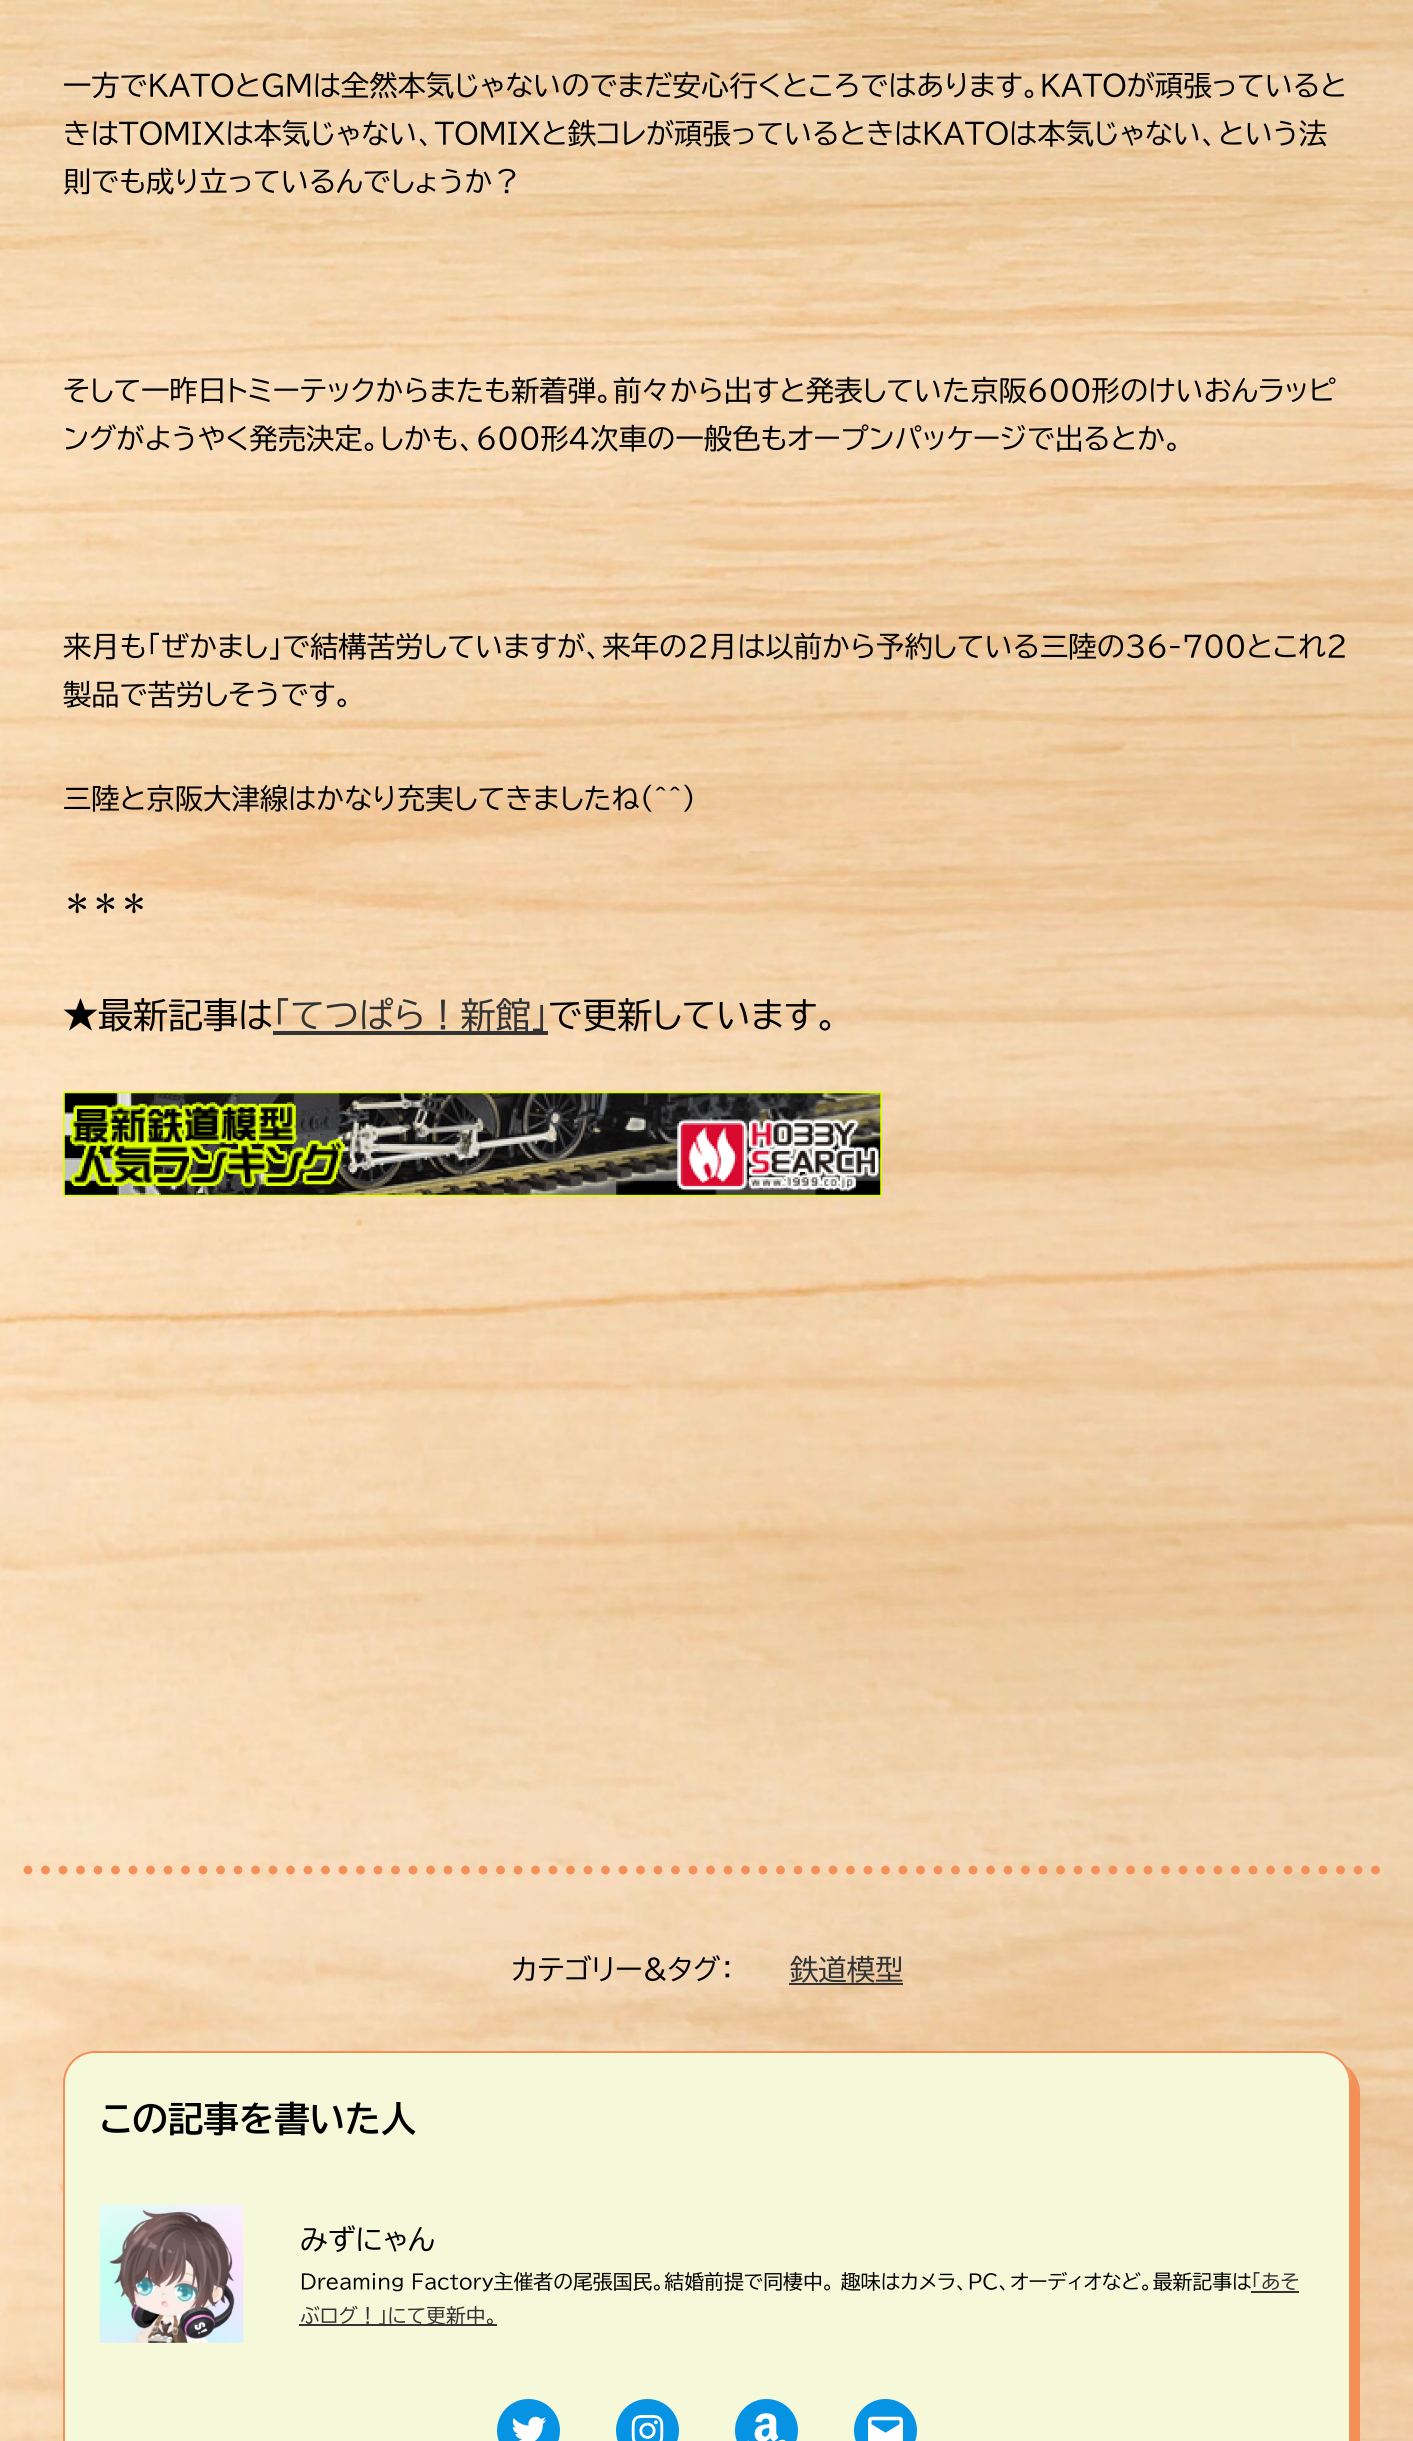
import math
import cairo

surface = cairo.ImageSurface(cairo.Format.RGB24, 1413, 2441)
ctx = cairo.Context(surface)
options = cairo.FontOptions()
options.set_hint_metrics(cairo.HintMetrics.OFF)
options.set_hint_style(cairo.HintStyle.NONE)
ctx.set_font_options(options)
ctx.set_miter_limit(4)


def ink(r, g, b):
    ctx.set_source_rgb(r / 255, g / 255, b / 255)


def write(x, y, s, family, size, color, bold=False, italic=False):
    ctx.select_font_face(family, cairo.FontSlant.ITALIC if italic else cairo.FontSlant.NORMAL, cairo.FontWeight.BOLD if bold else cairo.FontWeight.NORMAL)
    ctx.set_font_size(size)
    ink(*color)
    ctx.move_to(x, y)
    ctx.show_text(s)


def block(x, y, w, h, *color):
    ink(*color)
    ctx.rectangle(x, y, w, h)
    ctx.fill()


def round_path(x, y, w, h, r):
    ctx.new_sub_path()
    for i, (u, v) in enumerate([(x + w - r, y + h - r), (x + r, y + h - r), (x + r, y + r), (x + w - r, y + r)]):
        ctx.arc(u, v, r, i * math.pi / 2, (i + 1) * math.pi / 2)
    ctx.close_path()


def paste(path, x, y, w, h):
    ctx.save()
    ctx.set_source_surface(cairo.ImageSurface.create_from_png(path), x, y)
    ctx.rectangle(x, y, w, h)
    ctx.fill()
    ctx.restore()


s1 = dict(family="BIZ UDPGothic", size=28.35, color=(0, 0, 0))
s2 = dict(family="BIZ UDPGothic", size=35, color=(0, 0, 0))
s3 = dict(family="BIZ UDPGothic", size=35, color=(51, 51, 51))
s4 = dict(family="BIZ UDPGothic", size=28.35, color=(51, 51, 51))
s5 = dict(family="BIZ UDPGothic", size=35.5, color=(0, 0, 0), bold=True)
s6 = dict(family="BIZ UDPGothic", size=19.85, color=(0, 0, 0))
s7 = dict(family="BIZ UDPGothic", size=19.85, color=(51, 51, 51))

ink(255, 255, 255)
ctx.paint()
paste("pic1.png", 0, 0, 1413, 2441)
write(63, 96, "一方でKATOとGMは全然本気じゃないのでまだ安心行くところではあります。KATOが頑張っていると", **s1)
write(63, 144, "きはTOMIXは本気じゃない、TOMIXと鉄コレが頑張っているときはKATOは本気じゃない、という法", **s1)
write(63, 192, "則でも成り立っているんでしょうか？", **s1)
write(63, 401, "そして一昨日トミーテックからまたも新着弾。前々から出すと発表していた京阪600形のけいおんラッピ", **s1)
write(63, 449, "ングがようやく発売決定。しかも、600形4次車の一般色もオープンパッケージで出るとか。", **s1)
write(63, 657, "来月も「ぜかまし」で結構苦労していますが、来年の2月は以前から予約している三陸の36-700とこれ2", **s1)
write(63, 705, "製品で苦労しそうです。", **s1)
write(63, 809, "三陸と京阪大津線はかなり充実してきましたね(^^)", **s1)
write(63, 914, "＊＊＊", **s1)
write(63, 1028, "★最新記事は", **s2)
block(273, 1031, 275, 4, 51, 51, 51)
write(273, 1028, "「てつぱら！新館」", **s3)
write(548, 1028, "で更新しています。", **s2)
paste("pic2.png", 63, 1091, 819, 106)
ctx.new_path()
ctx.move_to(28, 1870)
ctx.line_to(1386, 1870)
ink(242, 144, 87)
ctx.set_line_width(8.8)
ctx.set_line_cap(cairo.LineCap.ROUND)
ctx.set_dash([0, 17.5])
ctx.stroke()
write(511, 1980, "カテゴリー&タグ：", **s1)
write(790, 1980, "鉄道模型", **s4)
block(789, 1983, 114, 2, 51, 51, 51)
ink(242, 144, 87)
ctx.new_path()
ctx.move_to(78, 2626)
ctx.curve_to(84, 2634, 93, 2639, 104, 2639)
ctx.line_to(1328, 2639)
ctx.curve_to(1346, 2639, 1360, 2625, 1360, 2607)
ctx.line_to(1360, 2092)
ctx.curve_to(1360, 2081, 1354, 2071, 1346, 2066)
ctx.curve_to(1349, 2070, 1351, 2076, 1351, 2082)
ctx.line_to(1351, 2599)
ctx.curve_to(1351, 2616, 1337, 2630, 1320, 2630)
ctx.line_to(94, 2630)
ctx.curve_to(88, 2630, 83, 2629, 78, 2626)
ctx.close_path()
ctx.fill()
ink(245, 248, 217)
round_path(64, 2052, 1286, 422, 31)
ctx.fill_preserve()
ink(242, 144, 87)
ctx.set_line_width(2)
ctx.set_line_cap(cairo.LineCap.BUTT)
ctx.set_dash([])
ctx.stroke()
write(100, 2132, "この記事を書いた人", **s5)
paste("pic3.png", 99, 2204, 145, 139)
write(300, 2250, "みずにゃん", **s1)
write(300, 2289, "Dreaming Factory主催者の尾張国民。結婚前提で同棲中。", **s6)
write(841, 2289, "趣味はカメラ、PC、オーディオなど。最新記事は", **s6)
write(1251, 2289, "「あそ", **s7)
block(1251, 2291, 48, 2, 51, 51, 51)
block(299, 2324, 198, 2, 51, 51, 51)
write(300, 2323, "ぶログ！」にて更新中。", **s7)
ink(6, 147, 227)
ctx.new_path()
ctx.arc(528.5, 2430.5, 31.5, 0, 2 * math.pi)
ctx.fill()
paste("pic4.png", 512, 2416, 35, 25)
ctx.arc(647.5, 2430.5, 31.5, 0, 2 * math.pi)
ctx.fill()
paste("pic5.png", 631, 2415, 33, 26)
ctx.arc(766.5, 2430.5, 31.5, 0, 2 * math.pi)
ctx.fill()
paste("pic6.png", 747, 2413, 39, 28)
ctx.arc(885.5, 2430.5, 31.5, 0, 2 * math.pi)
ctx.fill()
paste("pic7.png", 868, 2416, 35, 25)
surface.write_to_png("screenshot.png")
